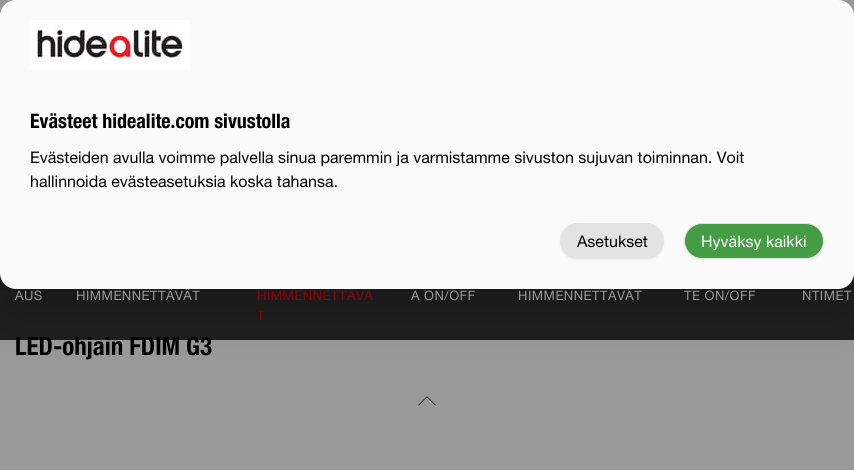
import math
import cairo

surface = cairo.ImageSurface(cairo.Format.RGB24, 854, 470)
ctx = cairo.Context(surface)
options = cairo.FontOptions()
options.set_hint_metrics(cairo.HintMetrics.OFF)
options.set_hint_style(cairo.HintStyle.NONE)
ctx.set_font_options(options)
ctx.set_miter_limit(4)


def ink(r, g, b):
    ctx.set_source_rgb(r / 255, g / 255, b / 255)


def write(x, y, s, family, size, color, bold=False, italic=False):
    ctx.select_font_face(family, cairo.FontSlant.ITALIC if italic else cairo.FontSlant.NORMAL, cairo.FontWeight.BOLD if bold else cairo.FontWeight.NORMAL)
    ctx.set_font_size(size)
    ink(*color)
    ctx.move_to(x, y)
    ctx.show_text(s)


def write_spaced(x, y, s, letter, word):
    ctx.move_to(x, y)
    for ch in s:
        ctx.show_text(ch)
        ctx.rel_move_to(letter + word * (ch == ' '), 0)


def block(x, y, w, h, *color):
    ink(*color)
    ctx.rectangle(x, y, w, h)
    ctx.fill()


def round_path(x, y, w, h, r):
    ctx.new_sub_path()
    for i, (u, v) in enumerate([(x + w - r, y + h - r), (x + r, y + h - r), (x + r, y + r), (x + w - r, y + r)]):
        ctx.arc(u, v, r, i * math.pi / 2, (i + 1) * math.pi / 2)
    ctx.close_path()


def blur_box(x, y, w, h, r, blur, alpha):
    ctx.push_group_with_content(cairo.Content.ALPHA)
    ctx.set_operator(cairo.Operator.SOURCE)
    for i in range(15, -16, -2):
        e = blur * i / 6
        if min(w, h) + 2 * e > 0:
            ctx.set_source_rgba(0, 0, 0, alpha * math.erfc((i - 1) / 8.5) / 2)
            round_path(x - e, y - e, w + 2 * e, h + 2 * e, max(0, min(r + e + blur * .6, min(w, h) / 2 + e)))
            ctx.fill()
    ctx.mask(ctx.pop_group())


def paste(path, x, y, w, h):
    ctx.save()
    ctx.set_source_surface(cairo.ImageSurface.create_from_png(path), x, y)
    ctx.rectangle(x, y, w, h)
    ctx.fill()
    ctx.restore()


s1 = dict(family="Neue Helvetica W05", size=25, color=(0, 0, 0), bold=True)
s2 = dict(family="Neue Helvetica W05", size=20, color=(0, 0, 0), bold=True)
s3 = dict(family="Neue Helvetica W05", size=16, color=(0, 0, 0))
s4 = dict(family="Neue Helvetica W05", size=16, color=(255, 255, 255))

ink(153, 153, 153)
ctx.paint()
block(0, 273, 854, 18, 148, 147, 147)
write(15, 355, "LED-ohjain FDIM G3", **s1)
ctx.set_source_rgba(0, 0, 0, 0.8)
ctx.rectangle(0, 273, 854, 67)
ctx.fill()
ink(0, 0, 0)
blur_box(12, 37, 830, 265, 4, 25, 0.25)
ctx.select_font_face("Neue Helvetica W05")
ctx.set_font_size(13)
ink(153, 153, 153)
write_spaced(76, 300, "HIMMENNETTÄVÄT", 0.5, 0)
ink(134, 4, 11)
write_spaced(257, 300, "HIMMENNETTÄVÄ", 0.5, 0)
ink(153, 153, 153)
write_spaced(518, 300, "HIMMENNETTÄVÄT", 0.5, 0)
ink(250, 250, 250)
round_path(0, 0, 854, 289, 16)
ctx.fill()
paste("pic1.png", 30, 20, 160, 50)
write(30, 128, "Evästeet hidealite.com sivustolla", **s2)
write(30, 163, "Evästeiden avulla voimme palvella sinua paremmin ja varmistamme sivuston sujuvan toiminnan. Voit", **s3)
write(30, 187, "hallinnoida evästeasetuksia koska tahansa.", **s3)
ink(0, 0, 0)
blur_box(560, 224, 104, 36, 18, 1, 0.05)
ink(227, 227, 227)
round_path(560.5, 223.5, 103, 35, 17.5)
ctx.fill_preserve()
ctx.set_line_width(1)
ctx.stroke()
write(577, 247, "Asetukset", **s3)
ink(0, 0, 0)
blur_box(684, 224, 140, 36, 18, 1, 0.05)
ink(68, 157, 68)
round_path(684.5, 223.5, 139, 35, 17.5)
ctx.fill_preserve()
ink(227, 227, 227)
ctx.stroke()
write(701, 247, "Hyväksy kaikki", **s4)
ctx.set_font_size(13)
ink(153, 153, 153)
write_spaced(15, 300, "AUS", 0.5, 0)
ink(134, 4, 11)
write_spaced(257, 320, "T", 0.5, 0)
ink(153, 153, 153)
write_spaced(411, 300, "A ON/OFF", 0.5, 0)
write_spaced(684, 300, "TE ON/OFF", 0.5, 0)
write_spaced(802, 300, "NTIMET", 0.5, 0)
paste("pic2.png", 418, 396, 18, 10)
surface.write_to_png("screenshot.png")
